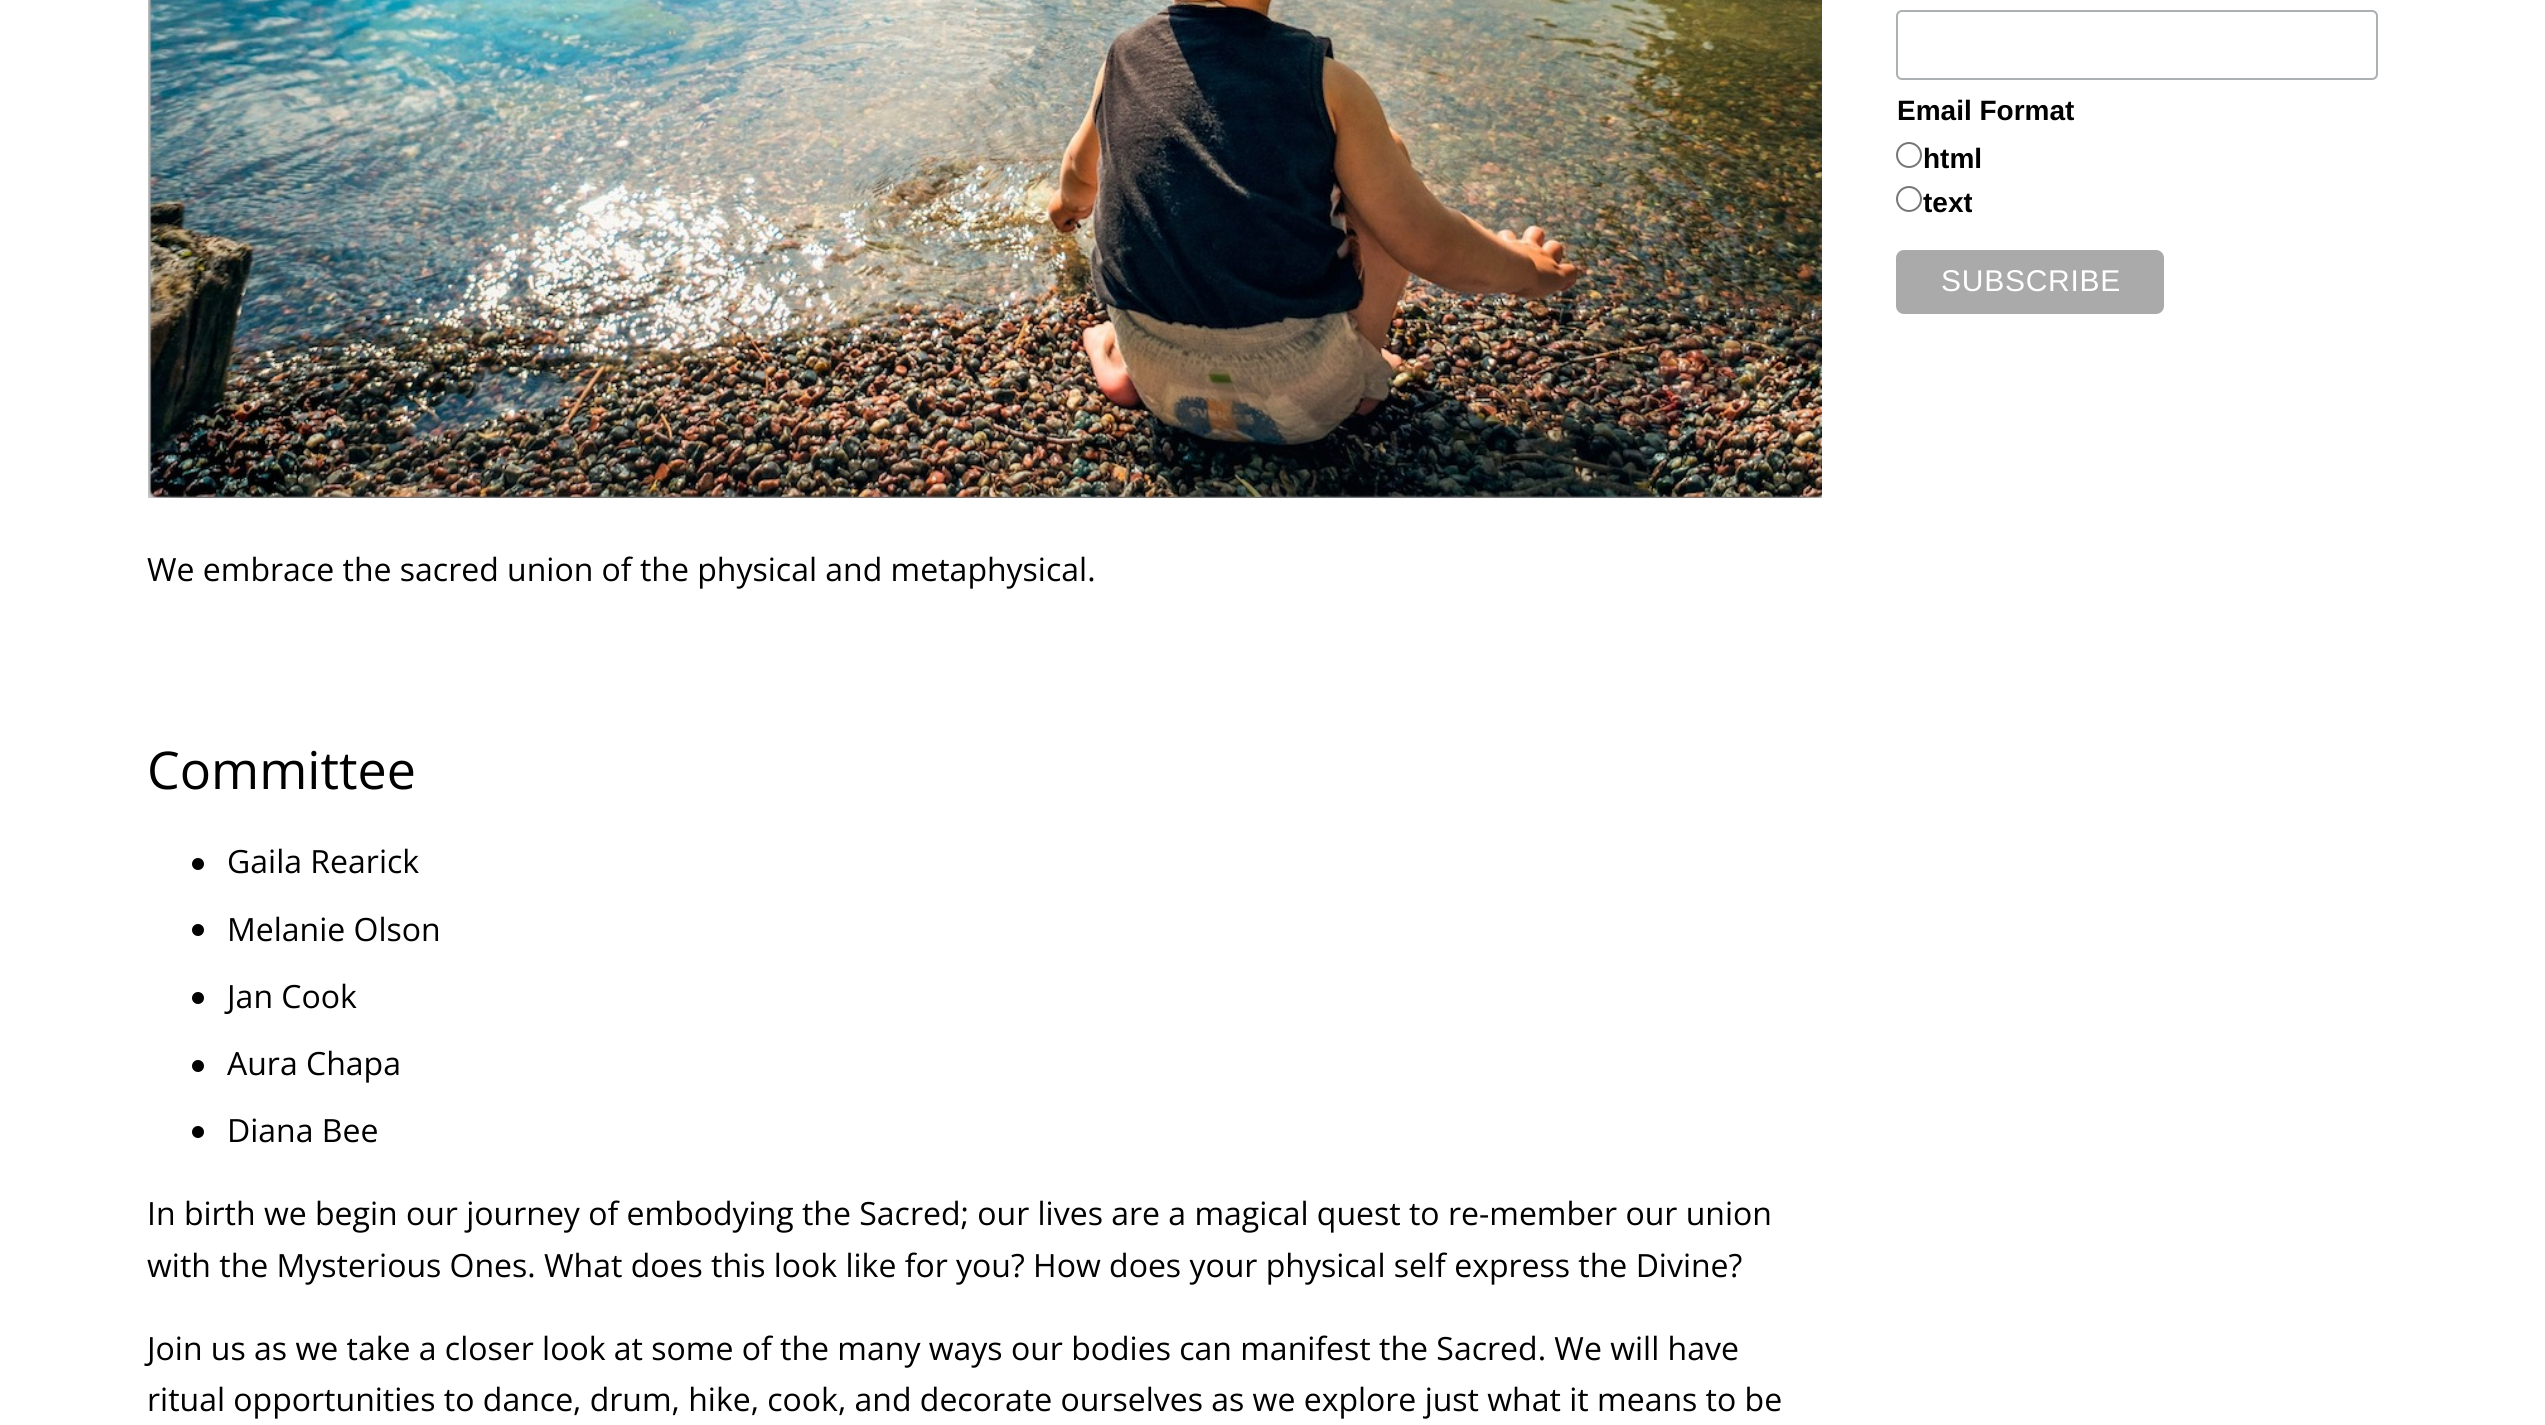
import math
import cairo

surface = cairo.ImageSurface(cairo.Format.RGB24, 2545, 1425)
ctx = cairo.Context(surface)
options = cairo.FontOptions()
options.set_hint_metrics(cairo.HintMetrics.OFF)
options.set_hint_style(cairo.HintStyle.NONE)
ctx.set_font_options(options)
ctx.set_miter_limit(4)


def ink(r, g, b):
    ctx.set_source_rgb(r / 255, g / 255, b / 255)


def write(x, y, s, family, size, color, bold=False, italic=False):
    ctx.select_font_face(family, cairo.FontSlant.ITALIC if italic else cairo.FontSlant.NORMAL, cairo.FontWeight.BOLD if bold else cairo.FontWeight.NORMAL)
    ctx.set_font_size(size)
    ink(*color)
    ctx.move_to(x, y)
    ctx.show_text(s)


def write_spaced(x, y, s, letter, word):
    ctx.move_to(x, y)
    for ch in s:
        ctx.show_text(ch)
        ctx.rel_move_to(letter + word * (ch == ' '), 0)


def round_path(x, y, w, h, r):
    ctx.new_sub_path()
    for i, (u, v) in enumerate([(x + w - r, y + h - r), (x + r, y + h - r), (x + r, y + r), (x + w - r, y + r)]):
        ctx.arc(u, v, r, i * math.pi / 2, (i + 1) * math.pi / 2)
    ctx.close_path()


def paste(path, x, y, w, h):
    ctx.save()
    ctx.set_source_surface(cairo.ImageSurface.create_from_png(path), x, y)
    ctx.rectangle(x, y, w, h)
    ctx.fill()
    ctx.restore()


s1 = dict(family="Liberation Sans", size=28, color=(0, 0, 1), bold=True)
s2 = dict(family="Open Sans", size=32, color=(0, 0, 1))
s3 = dict(family="Open Sans", size=52, color=(0, 0, 1))

ink(255, 255, 255)
ctx.paint()
round_path(1897, 11, 480, 68, 5)
ink(171, 176, 178)
ctx.stroke()
write(1897, 120, "Email Format", **s1)
ctx.new_path()
ctx.arc(1909, 155, 12, 0, 2 * math.pi)
ink(118, 118, 118)
ctx.stroke()
write(1923, 168, "html", **s1)
ctx.new_path()
ctx.arc(1909, 199, 12, 0, 2 * math.pi)
ink(118, 118, 118)
ctx.stroke()
write(1923, 212, "text", **s1)
ink(170, 170, 170)
round_path(1896, 250, 268, 64, 8)
ctx.fill()
ctx.select_font_face("Liberation Sans")
ctx.set_font_size(30)
ink(255, 255, 255)
write_spaced(1941, 291, "SUBSCRIBE", 0.75, 0)
paste("pic1.png", 148, 0, 1674, 498)
write(147, 581, "We embrace the sacred union of the physical and metaphysical.", **s2)
write(147, 789, "Committee", **s3)
ctx.new_path()
ctx.arc(198, 864, 6, 0, 2 * math.pi)
ctx.fill()
write(227, 873, "Gaila Rearick", **s2)
ctx.new_path()
ctx.arc(198, 930, 6, 0, 2 * math.pi)
ctx.fill()
write(227, 941, "Melanie Olson", **s2)
ctx.new_path()
ctx.arc(198, 998, 6, 0, 2 * math.pi)
ctx.fill()
write(227, 1008, "Jan Cook", **s2)
ctx.new_path()
ctx.arc(198, 1066, 6, 0, 2 * math.pi)
ctx.fill()
write(227, 1075, "Aura Chapa", **s2)
ctx.new_path()
ctx.arc(198, 1132, 6, 0, 2 * math.pi)
ctx.fill()
write(227, 1142, "Diana Bee", **s2)
write(147, 1225, "In birth we begin our journey of embodying the Sacred; our lives are a magical quest to re-member our union", **s2)
write(147, 1277, "with the Mysterious Ones. What does this look like for you? How does your physical self express the Divine?", **s2)
write(147, 1360, "Join us as we take a closer look at some of the many ways our bodies can manifest the Sacred. We will have", **s2)
write(147, 1411, "ritual opportunities to dance, drum, hike, cook, and decorate ourselves as we explore just what it means to be", **s2)
surface.write_to_png("screenshot.png")
